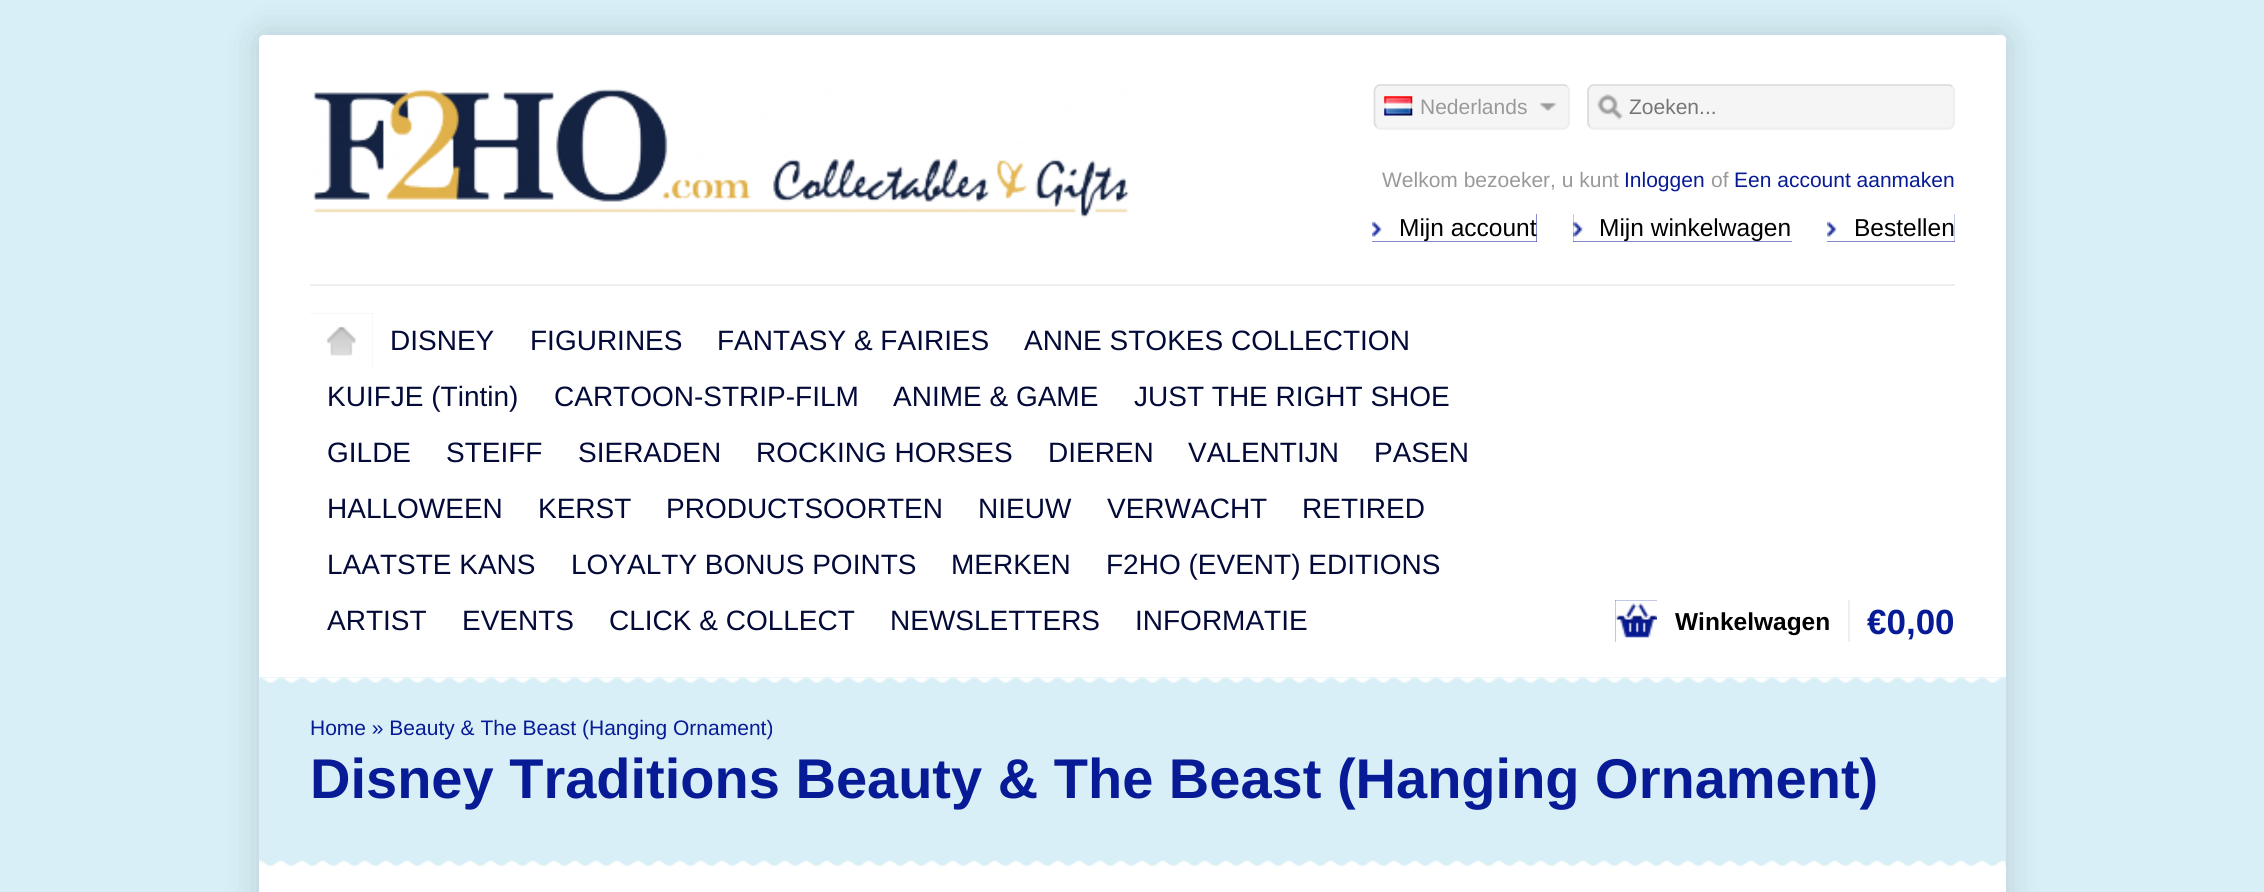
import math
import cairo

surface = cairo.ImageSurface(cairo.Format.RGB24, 2264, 892)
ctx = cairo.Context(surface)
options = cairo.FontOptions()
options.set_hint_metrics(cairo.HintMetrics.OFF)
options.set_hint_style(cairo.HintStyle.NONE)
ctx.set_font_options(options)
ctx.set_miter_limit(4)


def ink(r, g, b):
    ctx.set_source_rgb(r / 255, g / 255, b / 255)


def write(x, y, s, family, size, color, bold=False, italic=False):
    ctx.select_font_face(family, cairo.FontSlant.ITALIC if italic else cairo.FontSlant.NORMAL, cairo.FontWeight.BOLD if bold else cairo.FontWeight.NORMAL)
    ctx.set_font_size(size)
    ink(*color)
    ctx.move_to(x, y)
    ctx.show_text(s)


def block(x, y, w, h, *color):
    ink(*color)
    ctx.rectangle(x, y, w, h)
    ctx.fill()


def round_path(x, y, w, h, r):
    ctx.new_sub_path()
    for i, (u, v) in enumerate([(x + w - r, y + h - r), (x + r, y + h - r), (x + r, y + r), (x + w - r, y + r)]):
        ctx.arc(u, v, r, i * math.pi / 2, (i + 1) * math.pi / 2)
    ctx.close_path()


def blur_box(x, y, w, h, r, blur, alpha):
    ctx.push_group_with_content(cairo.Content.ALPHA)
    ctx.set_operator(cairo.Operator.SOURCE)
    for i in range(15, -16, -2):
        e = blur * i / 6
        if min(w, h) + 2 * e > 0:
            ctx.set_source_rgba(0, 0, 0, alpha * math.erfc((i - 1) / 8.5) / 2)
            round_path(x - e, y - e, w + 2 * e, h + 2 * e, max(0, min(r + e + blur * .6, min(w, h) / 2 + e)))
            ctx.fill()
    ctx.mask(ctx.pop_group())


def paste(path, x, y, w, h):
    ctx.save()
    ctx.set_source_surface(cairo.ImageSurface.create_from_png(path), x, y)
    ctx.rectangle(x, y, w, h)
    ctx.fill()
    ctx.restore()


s1 = dict(family="Liberation Sans", size=21, color=(153, 153, 153))
s2 = dict(family="Liberation Sans", size=21, color=(117, 117, 117))
s3 = dict(family="Liberation Sans", size=21, color=(8, 27, 150))
s4 = dict(family="Liberation Sans", size=24.5, color=(0, 0, 0))
s5 = dict(family="Liberation Sans", size=28, color=(3, 10, 56))
s6 = dict(family="Liberation Sans", size=24.5, color=(0, 0, 0), bold=True)
s7 = dict(family="Liberation Sans", size=35, color=(8, 27, 150), bold=True)
s8 = dict(family="Liberation Sans", size=56, color=(8, 27, 150), bold=True)

ink(216, 239, 247)
ctx.paint()
ink(0, 0, 0)
blur_box(259, 35, 1747, 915, 5, 17.5, 0.15)
ink(255, 255, 255)
round_path(259, 35, 1747, 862, 5)
ctx.fill()
paste("pic1.png", 313, 89, 816, 129)
ink(245, 245, 245)
round_path(1374, 84, 196, 46, 7)
ctx.fill()
paste("pic2.png", 1540, 102, 17, 9)
ctx.new_path()
ctx.move_to(1567, 86.5)
ctx.curve_to(1568, 88, 1569, 89.5, 1569, 91)
ctx.line_to(1569, 122.5)
ctx.curve_to(1569, 124, 1568, 125.5, 1567, 127)
ctx.curve_to(1566, 128, 1564.5, 128.5, 1563, 128.5)
ctx.line_to(1381, 128.5)
ctx.curve_to(1379, 128.5, 1377.5, 128, 1376.5, 127)
ink(238, 238, 238)
ctx.set_line_width(1.8)
ctx.stroke()
ctx.new_path()
ctx.move_to(1376.5, 127)
ctx.curve_to(1375.5, 125.5, 1374.5, 124, 1374.5, 122.5)
ctx.line_to(1374.5, 91)
ctx.curve_to(1374.5, 89.5, 1375.5, 88, 1376.5, 86.5)
ctx.curve_to(1377.5, 85.5, 1379, 85, 1381, 85)
ctx.line_to(1563, 85)
ctx.curve_to(1564.5, 85, 1566, 85.5, 1567, 86.5)
ink(221, 221, 221)
ctx.stroke()
paste("pic3.png", 1384, 96, 29, 20)
write(1420, 114, "Nederlands", **s1)
ink(245, 245, 245)
round_path(1587, 84, 368, 46, 7)
ctx.fill()
paste("pic4.png", 1597, 94, 26, 26)
ctx.new_path()
ctx.move_to(1952, 86.5)
ctx.curve_to(1953, 88, 1954, 89.5, 1954, 91)
ctx.line_to(1954, 122.5)
ctx.curve_to(1954, 124, 1953, 125.5, 1952, 127)
ctx.curve_to(1951, 128, 1949.5, 128.5, 1948, 128.5)
ctx.line_to(1594, 128.5)
ctx.curve_to(1592.5, 128.5, 1591, 128, 1590, 127)
ink(238, 238, 238)
ctx.stroke()
ctx.new_path()
ctx.move_to(1590, 127)
ctx.curve_to(1589, 125.5, 1588, 124, 1588, 122.5)
ctx.line_to(1588, 91)
ctx.curve_to(1588, 89.5, 1589, 88, 1590, 86.5)
ctx.curve_to(1591, 85.5, 1592.5, 85, 1594, 85)
ctx.line_to(1948, 85)
ctx.curve_to(1949.5, 85, 1951, 85.5, 1952, 86.5)
ink(221, 221, 221)
ctx.stroke()
write(1629, 114, "Zoeken...", **s2)
write(1382, 187, "Welkom bezoeker, u kunt", **s1)
write(1624, 187, "Inloggen", **s3)
write(1711, 187, "of", **s1)
write(1734, 187, "Een account aanmaken", **s3)
block(1372, 214, 165, 28, 8, 27, 150)
paste("pic5.png", 1372, 214, 165, 28)
block(1573, 214, 219, 28, 8, 27, 150)
paste("pic6.png", 1573, 214, 219, 28)
block(1827, 214, 128, 28, 8, 27, 150)
paste("pic7.png", 1827, 214, 128, 28)
write(1399, 236, "Mijn account", **s4)
write(1599, 236, "Mijn winkelwagen", **s4)
write(1854, 236, "Bestellen", **s4)
block(310, 284, 1645, 2, 238, 238, 238)
block(310, 313, 63, 56, 221, 221, 221)
paste("pic8.png", 310, 313, 63, 56)
write(390, 350, "DISNEY", **s5)
write(530, 350, "FIGURINES", **s5)
write(717, 350, "FANTASY & FAIRIES", **s5)
write(1024, 350, "ANNE STOKES COLLECTION", **s5)
write(327, 406, "KUIFJE (Tintin)", **s5)
write(554, 406, "CARTOON-STRIP-FILM", **s5)
write(893, 406, "ANIME & GAME", **s5)
write(1134, 406, "JUST THE RIGHT SHOE", **s5)
write(327, 462, "GILDE", **s5)
write(446, 462, "STEIFF", **s5)
write(578, 462, "SIERADEN", **s5)
write(756, 462, "ROCKING HORSES", **s5)
write(1048, 462, "DIEREN", **s5)
write(1188, 462, "VALENTIJN", **s5)
write(1374, 462, "PASEN", **s5)
write(327, 518, "HALLOWEEN", **s5)
write(538, 518, "KERST", **s5)
write(666, 518, "PRODUCTSOORTEN", **s5)
write(978, 518, "NIEUW", **s5)
write(1107, 518, "VERWACHT", **s5)
write(1302, 518, "RETIRED", **s5)
write(327, 574, "LAATSTE KANS", **s5)
write(571, 574, "LOYALTY BONUS POINTS", **s5)
write(951, 574, "MERKEN", **s5)
write(1106, 574, "F2HO (EVENT) EDITIONS", **s5)
write(327, 630, "ARTIST", **s5)
write(462, 630, "EVENTS", **s5)
write(609, 630, "CLICK & COLLECT", **s5)
write(890, 630, "NEWSLETTERS", **s5)
write(1135, 630, "INFORMATIE", **s5)
block(1615, 600, 42, 42, 8, 27, 150)
paste("pic9.png", 1615, 600, 42, 42)
block(1848, 600, 2, 42, 238, 238, 238)
write(1675, 630, "Winkelwagen", **s6)
write(1867, 634, "€0,00", **s7)
block(259, 677, 1747, 189, 216, 239, 247)
paste("pic10.png", 259, 677, 1747, 6)
write(310, 735, "Home » Beauty & The Beast (Hanging Ornament)", **s3)
write(310, 798, "Disney Traditions Beauty & The Beast (Hanging Ornament)", **s8)
paste("pic11.png", 259, 860, 1747, 6)
surface.write_to_png("screenshot.png")
